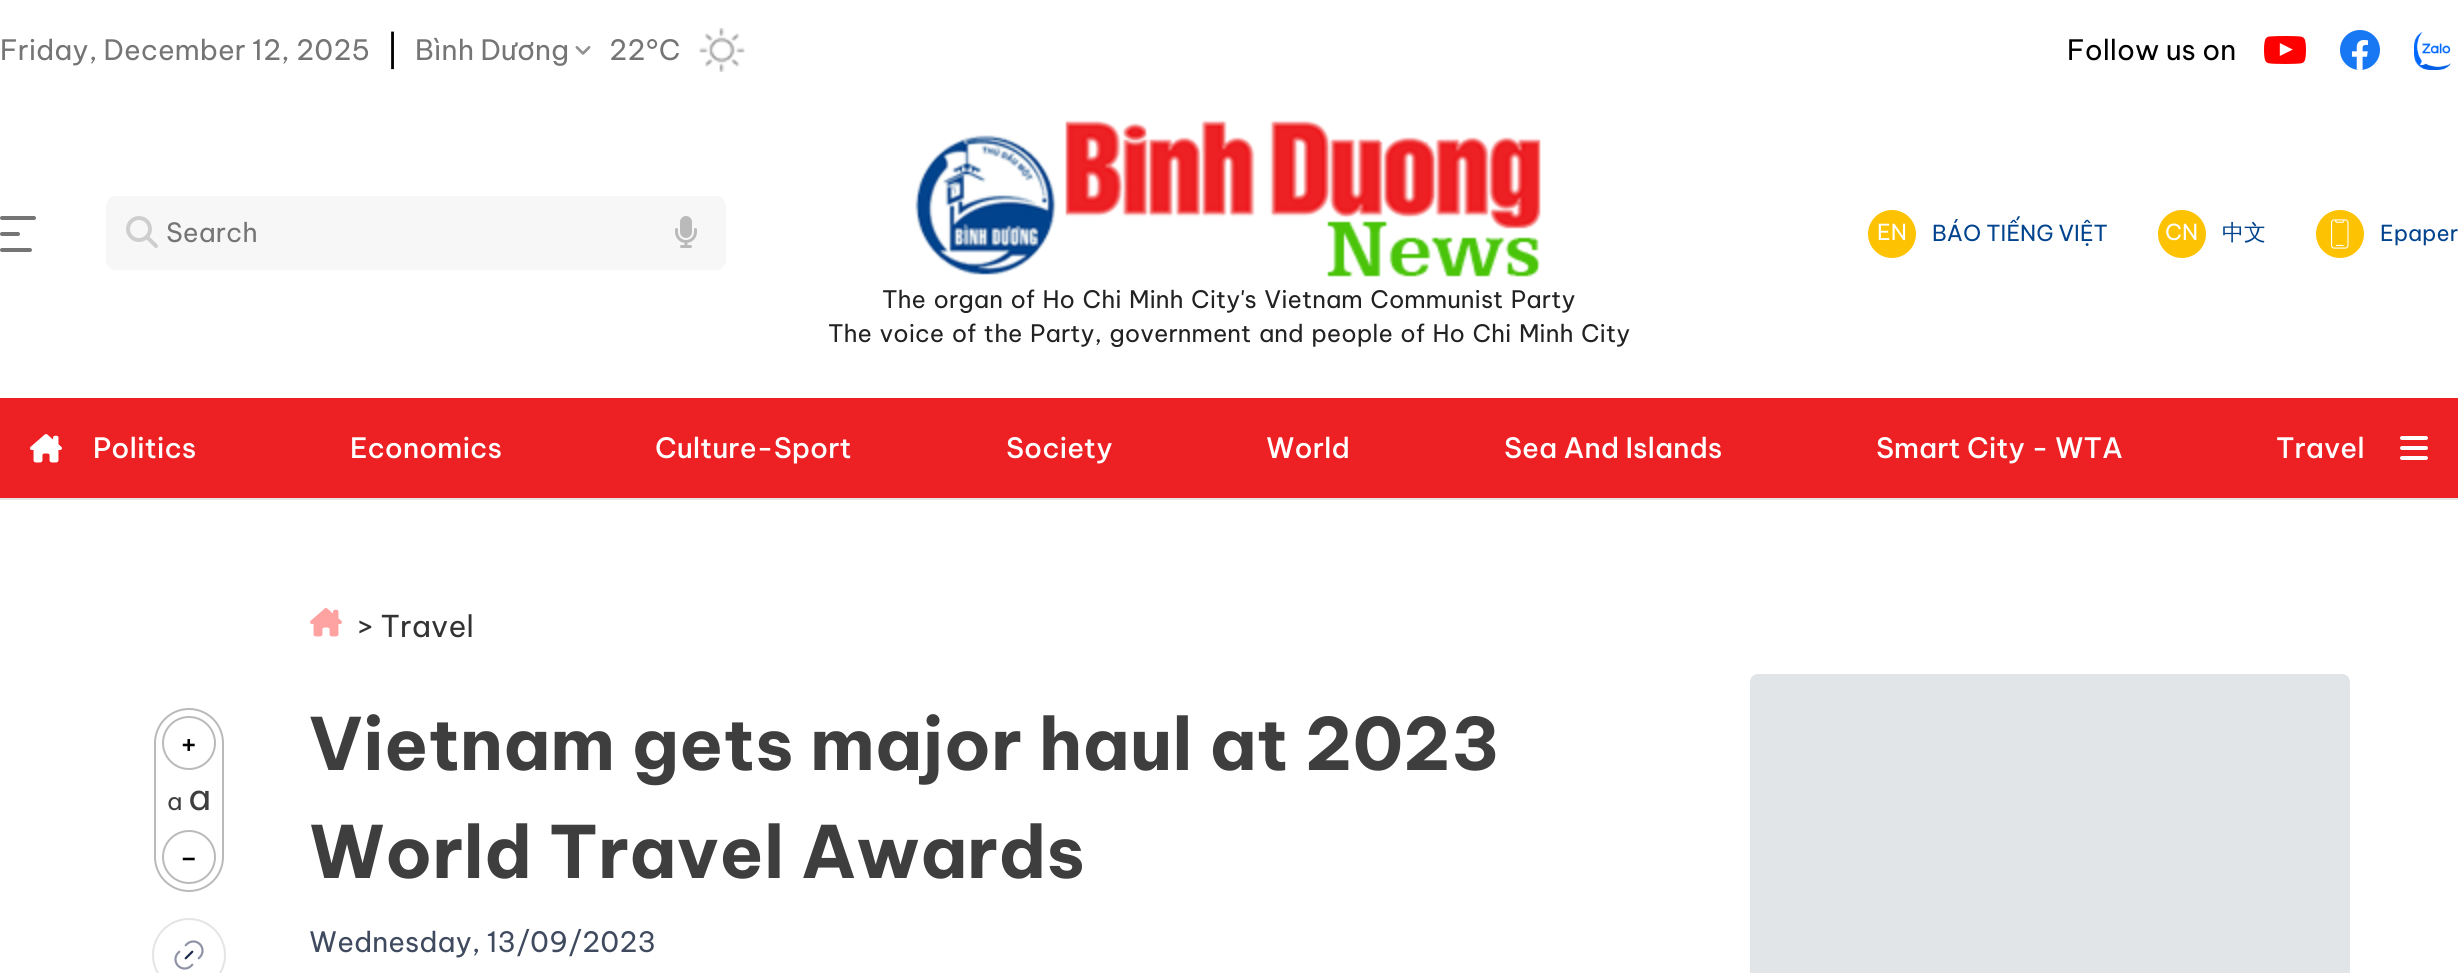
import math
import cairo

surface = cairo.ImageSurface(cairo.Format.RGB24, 2458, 973)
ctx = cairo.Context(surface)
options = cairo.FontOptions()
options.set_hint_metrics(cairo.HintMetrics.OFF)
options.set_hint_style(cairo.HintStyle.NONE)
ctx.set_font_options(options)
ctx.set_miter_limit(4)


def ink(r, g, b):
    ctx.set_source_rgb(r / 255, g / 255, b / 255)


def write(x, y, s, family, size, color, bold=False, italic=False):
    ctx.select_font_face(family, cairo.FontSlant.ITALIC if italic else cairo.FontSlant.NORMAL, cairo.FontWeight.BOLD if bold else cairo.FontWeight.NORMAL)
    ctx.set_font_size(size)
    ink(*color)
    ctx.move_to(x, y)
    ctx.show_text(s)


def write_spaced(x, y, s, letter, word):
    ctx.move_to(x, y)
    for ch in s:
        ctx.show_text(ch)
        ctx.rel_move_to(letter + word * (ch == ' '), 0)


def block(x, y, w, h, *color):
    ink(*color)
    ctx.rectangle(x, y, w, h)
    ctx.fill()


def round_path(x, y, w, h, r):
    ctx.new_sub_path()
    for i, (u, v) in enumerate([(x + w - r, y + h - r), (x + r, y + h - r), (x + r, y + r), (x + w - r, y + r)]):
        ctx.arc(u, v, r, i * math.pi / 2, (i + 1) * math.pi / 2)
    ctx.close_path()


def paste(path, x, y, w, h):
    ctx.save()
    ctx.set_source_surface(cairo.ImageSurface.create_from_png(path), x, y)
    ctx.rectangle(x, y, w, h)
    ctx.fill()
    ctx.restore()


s1 = dict(family="Be Vietnam Pro", size=28, color=(117, 117, 117))
s2 = dict(family="Be Vietnam Pro", size=32, color=(0, 0, 0))
s3 = dict(family="Be Vietnam Pro", size=28, color=(0, 0, 0))
s4 = dict(family="Be Vietnam Pro", size=26.5, color=(117, 117, 117))
s5 = dict(family="Be Vietnam Pro", size=22, color=(255, 255, 255))
s6 = dict(family="Be Vietnam Pro", size=22, color=(1, 68, 141))
s7 = dict(family="WenQuanYi Zen Hei Medium", size=22, color=(1, 68, 141))
s8 = dict(family="Be Vietnam Pro Medium", size=28, color=(255, 255, 255))
s9 = dict(family="Be Vietnam Pro", size=24, color=(62, 62, 62))
s10 = dict(family="Be Vietnam Pro", size=36, color=(62, 62, 62))
s11 = dict(family="Be Vietnam Pro", size=30, color=(51, 51, 51))
s12 = dict(family="Be Vietnam Pro", size=72, color=(62, 62, 62), bold=True)
s13 = dict(family="Be Vietnam Pro", size=28, color=(63, 74, 95))

ink(255, 255, 255)
ctx.paint()
write(0, 60, "Friday, December 12, 2025", **s1)
write(386, 62, "|", **s2)
write(415, 60, "Bình Dương", **s1)
paste("pic1.png", 575, 46, 16, 9)
write(609, 60, "22°C", **s1)
paste("pic2.png", 699, 28, 46, 44)
write(2067, 60, "Follow us on", **s3)
paste("pic3.png", 2264, 36, 42, 28)
paste("pic4.png", 2340, 30, 40, 40)
paste("pic5.png", 2414, 31, 37, 39)
ink(117, 117, 117)
round_path(0, 216, 36, 4, 2)
ctx.fill()
round_path(0, 232, 20, 4, 2)
ctx.fill()
round_path(0, 248, 32, 4, 2)
ctx.fill()
ink(247, 247, 247)
round_path(106, 196, 620, 74, 10)
ctx.fill()
paste("pic6.png", 126, 216, 32, 32)
write(166, 242, "Search", **s4)
paste("pic7.png", 675, 216, 22, 32)
ink(253, 194, 2)
ctx.arc(1892, 234, 24, 0, 2 * math.pi)
ctx.fill()
write(1877, 240, "EN", **s5)
write(1932, 241, "BÁO TIẾNG VIỆT", **s6)
ink(253, 194, 2)
ctx.new_path()
ctx.arc(2182, 234, 24, 0, 2 * math.pi)
ctx.fill()
write(2165, 240, "CN", **s5)
write(2222, 240, "中文", **s7)
ink(253, 194, 2)
ctx.new_path()
ctx.arc(2340, 234, 24, 0, 2 * math.pi)
ctx.fill()
paste("pic8.png", 2331, 219, 18, 30)
write(2380, 241, "Epaper", **s6)
paste("pic9.png", 915, 120, 626, 157)
ctx.set_font_size(24)
ink(34, 34, 34)
write_spaced(882, 308, "The organ of Ho Chi Minh City's Vietnam Communist Party", 0, 2)
write_spaced(828, 342, "The voice of the Party, government and people of Ho Chi Minh City", 0, 2)
block(0, 398, 2458, 100, 237, 32, 36)
block(0, 498, 2458, 2, 230, 230, 230)
paste("pic10.png", 30, 434, 32, 29)
write(93, 458, "Politics", **s8)
write(350, 458, "Economics", **s8)
write(655, 458, "Culture-Sport", **s8)
write(1006, 458, "Society", **s8)
write(1266, 458, "World", **s8)
write(1504, 458, "Sea And Islands", **s8)
write(1876, 458, "Smart City - WTA", **s8)
write(2276, 458, "Travel", **s8)
paste("pic11.png", 2400, 436, 28, 24)
round_path(155, 709, 68, 182, 34)
ink(186, 186, 186)
ctx.stroke()
ctx.arc(189, 743, 26, 0, 2 * math.pi)
ctx.stroke()
write(179, 755, "+", **s2)
write(167, 810, "a", **s9)
write(188, 810, "a", **s10)
ctx.new_path()
ctx.arc(189, 857, 26, 0, 2 * math.pi)
ink(186, 186, 186)
ctx.stroke()
write(179, 869, "-", **s2)
ctx.new_path()
ctx.arc(189, 955, 36, 0, 2 * math.pi)
ink(228, 228, 228)
ctx.stroke()
paste("pic12.png", 174, 940, 30, 30)
paste("pic13.png", 310, 608, 32, 29)
write(357, 637, "> Travel", **s11)
write(309, 770, "Vietnam gets major haul at 2023", **s12)
write(309, 878, "World Travel Awards", **s12)
write(309, 952, "Wednesday, 13/09/2023", **s13)
ink(226, 229, 231)
round_path(1750, 674, 600, 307, 8)
ctx.fill()
surface.write_to_png("screenshot.png")
